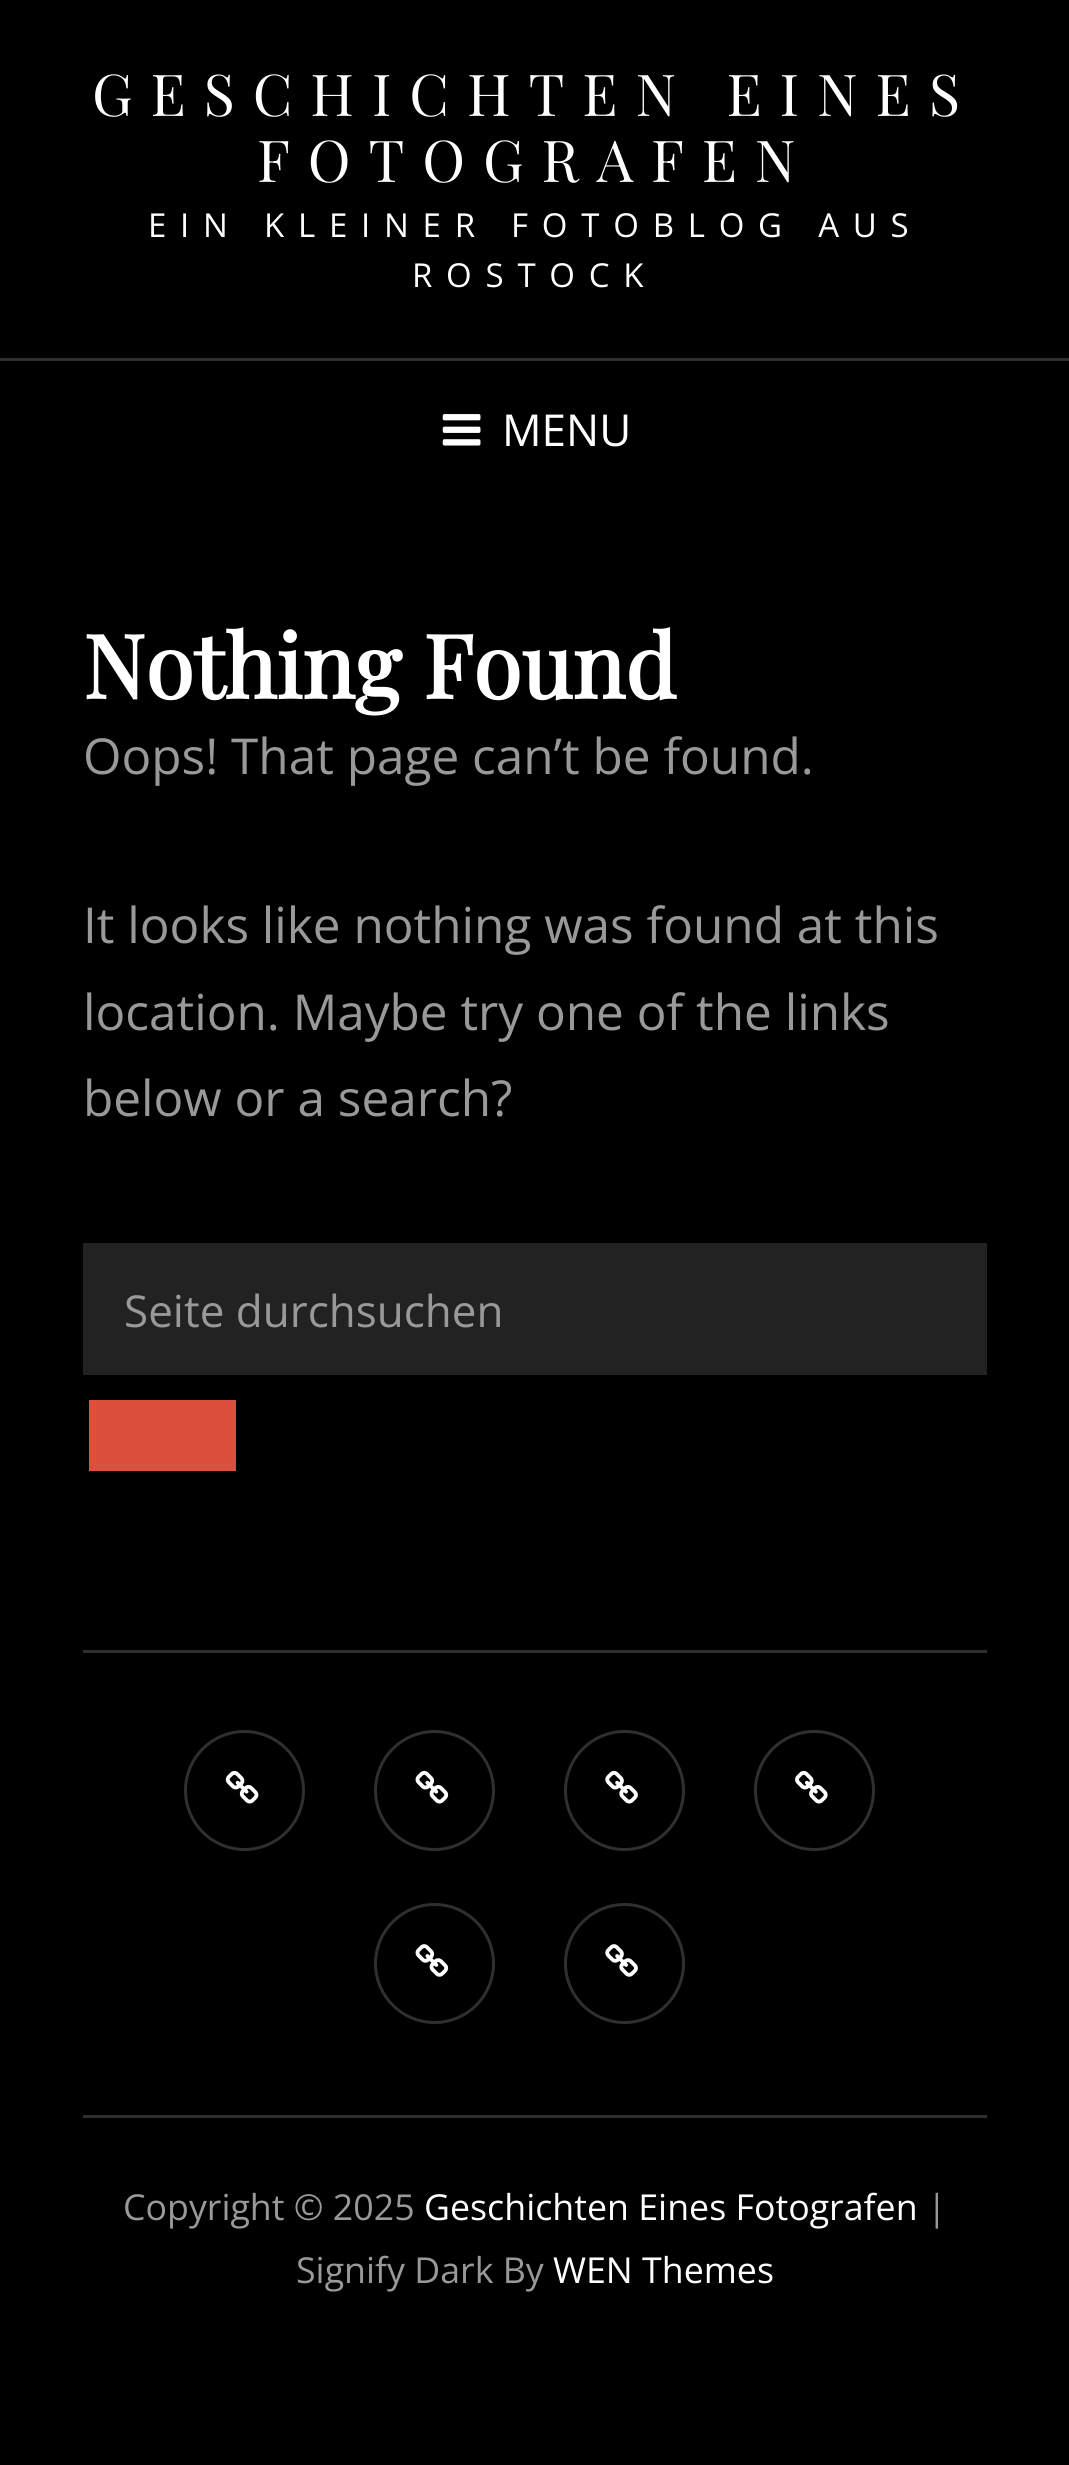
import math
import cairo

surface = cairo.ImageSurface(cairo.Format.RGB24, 1069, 2465)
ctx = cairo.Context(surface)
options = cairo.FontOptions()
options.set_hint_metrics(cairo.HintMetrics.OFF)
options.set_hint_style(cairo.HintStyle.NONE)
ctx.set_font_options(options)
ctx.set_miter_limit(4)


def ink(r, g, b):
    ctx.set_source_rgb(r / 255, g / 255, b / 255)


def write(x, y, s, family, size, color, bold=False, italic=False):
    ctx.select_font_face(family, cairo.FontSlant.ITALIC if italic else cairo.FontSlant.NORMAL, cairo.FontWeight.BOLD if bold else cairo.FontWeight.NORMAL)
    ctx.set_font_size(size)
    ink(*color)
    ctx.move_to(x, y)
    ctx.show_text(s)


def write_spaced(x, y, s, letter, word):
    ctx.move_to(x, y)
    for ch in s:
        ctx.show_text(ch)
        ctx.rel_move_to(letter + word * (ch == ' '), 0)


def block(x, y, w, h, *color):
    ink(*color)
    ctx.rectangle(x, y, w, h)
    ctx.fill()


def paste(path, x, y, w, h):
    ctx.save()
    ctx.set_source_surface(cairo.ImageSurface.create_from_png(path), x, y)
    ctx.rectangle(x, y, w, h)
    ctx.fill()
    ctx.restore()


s1 = dict(family="Open Sans", size=44, color=(255, 255, 255))
s2 = dict(family="Playfair Display", size=88, color=(255, 255, 255), bold=True)
s3 = dict(family="Open Sans", size=49.5, color=(153, 153, 153))
s4 = dict(family="Open Sans", size=44, color=(153, 153, 153))
s5 = dict(family="Open Sans", size=35.75, color=(153, 153, 153))
s6 = dict(family="Open Sans", size=35.75, color=(255, 255, 255))

ink(0, 0, 0)
ctx.paint()
ctx.select_font_face("Playfair Display")
ctx.set_font_size(57.75)
ink(255, 255, 255)
write_spaced(92, 116, "GESCHICHTEN EINES", 17.9, 0)
write_spaced(257, 182, "FOTOGRAFEN", 17.9, 0)
ctx.select_font_face("Open Sans")
ctx.set_font_size(33)
write_spaced(148, 237, "EIN KLEINER FOTOBLOG AUS", 13.75, 0)
write_spaced(412, 287, "ROSTOCK", 13.75, 0)
block(0, 358, 1069, 3, 47, 47, 47)
paste("pic1.png", 442, 414, 39, 32)
write(502, 446, "MENU", **s1)
write(83, 699, "Nothing Found", **s2)
write(83, 774, "Oops! That page can’t be found.", **s3)
write(83, 943, "It looks like nothing was found at this", **s3)
write(83, 1030, "location. Maybe try one of the links", **s3)
write(83, 1116, "below or a search?", **s3)
block(83, 1243, 904, 132, 34, 34, 34)
write(124, 1327, "Seite durchsuchen", **s4)
block(89, 1400, 147, 71, 219, 79, 61)
block(83, 1650, 904, 3, 47, 47, 47)
block(83, 2115, 904, 3, 47, 47, 47)
ctx.new_path()
ctx.arc(244.5, 1790.5, 59, 0, 2 * math.pi)
ctx.set_line_width(3)
ctx.stroke()
paste("pic2.png", 225, 1770, 34, 34)
ctx.arc(434.5, 1790.5, 59, 0, 2 * math.pi)
ctx.stroke()
paste("pic3.png", 415, 1770, 34, 34)
ctx.arc(624.5, 1790.5, 59, 0, 2 * math.pi)
ctx.stroke()
paste("pic4.png", 605, 1770, 33, 34)
ctx.arc(814.5, 1790.5, 59, 0, 2 * math.pi)
ctx.stroke()
paste("pic5.png", 795, 1770, 33, 34)
ctx.arc(434.5, 1963.5, 59, 0, 2 * math.pi)
ctx.stroke()
paste("pic6.png", 415, 1944, 34, 33)
ctx.arc(624.5, 1963.5, 59, 0, 2 * math.pi)
ctx.stroke()
paste("pic7.png", 605, 1944, 33, 33)
write(123, 2220, "Copyright © 2025", **s5)
write(424, 2220, "Geschichten Eines Fotografen", **s6)
write(927, 2220, "|", **s5)
write(296, 2283, "Signify Dark By", **s5)
write(553, 2283, "WEN Themes", **s6)
surface.write_to_png("screenshot.png")
